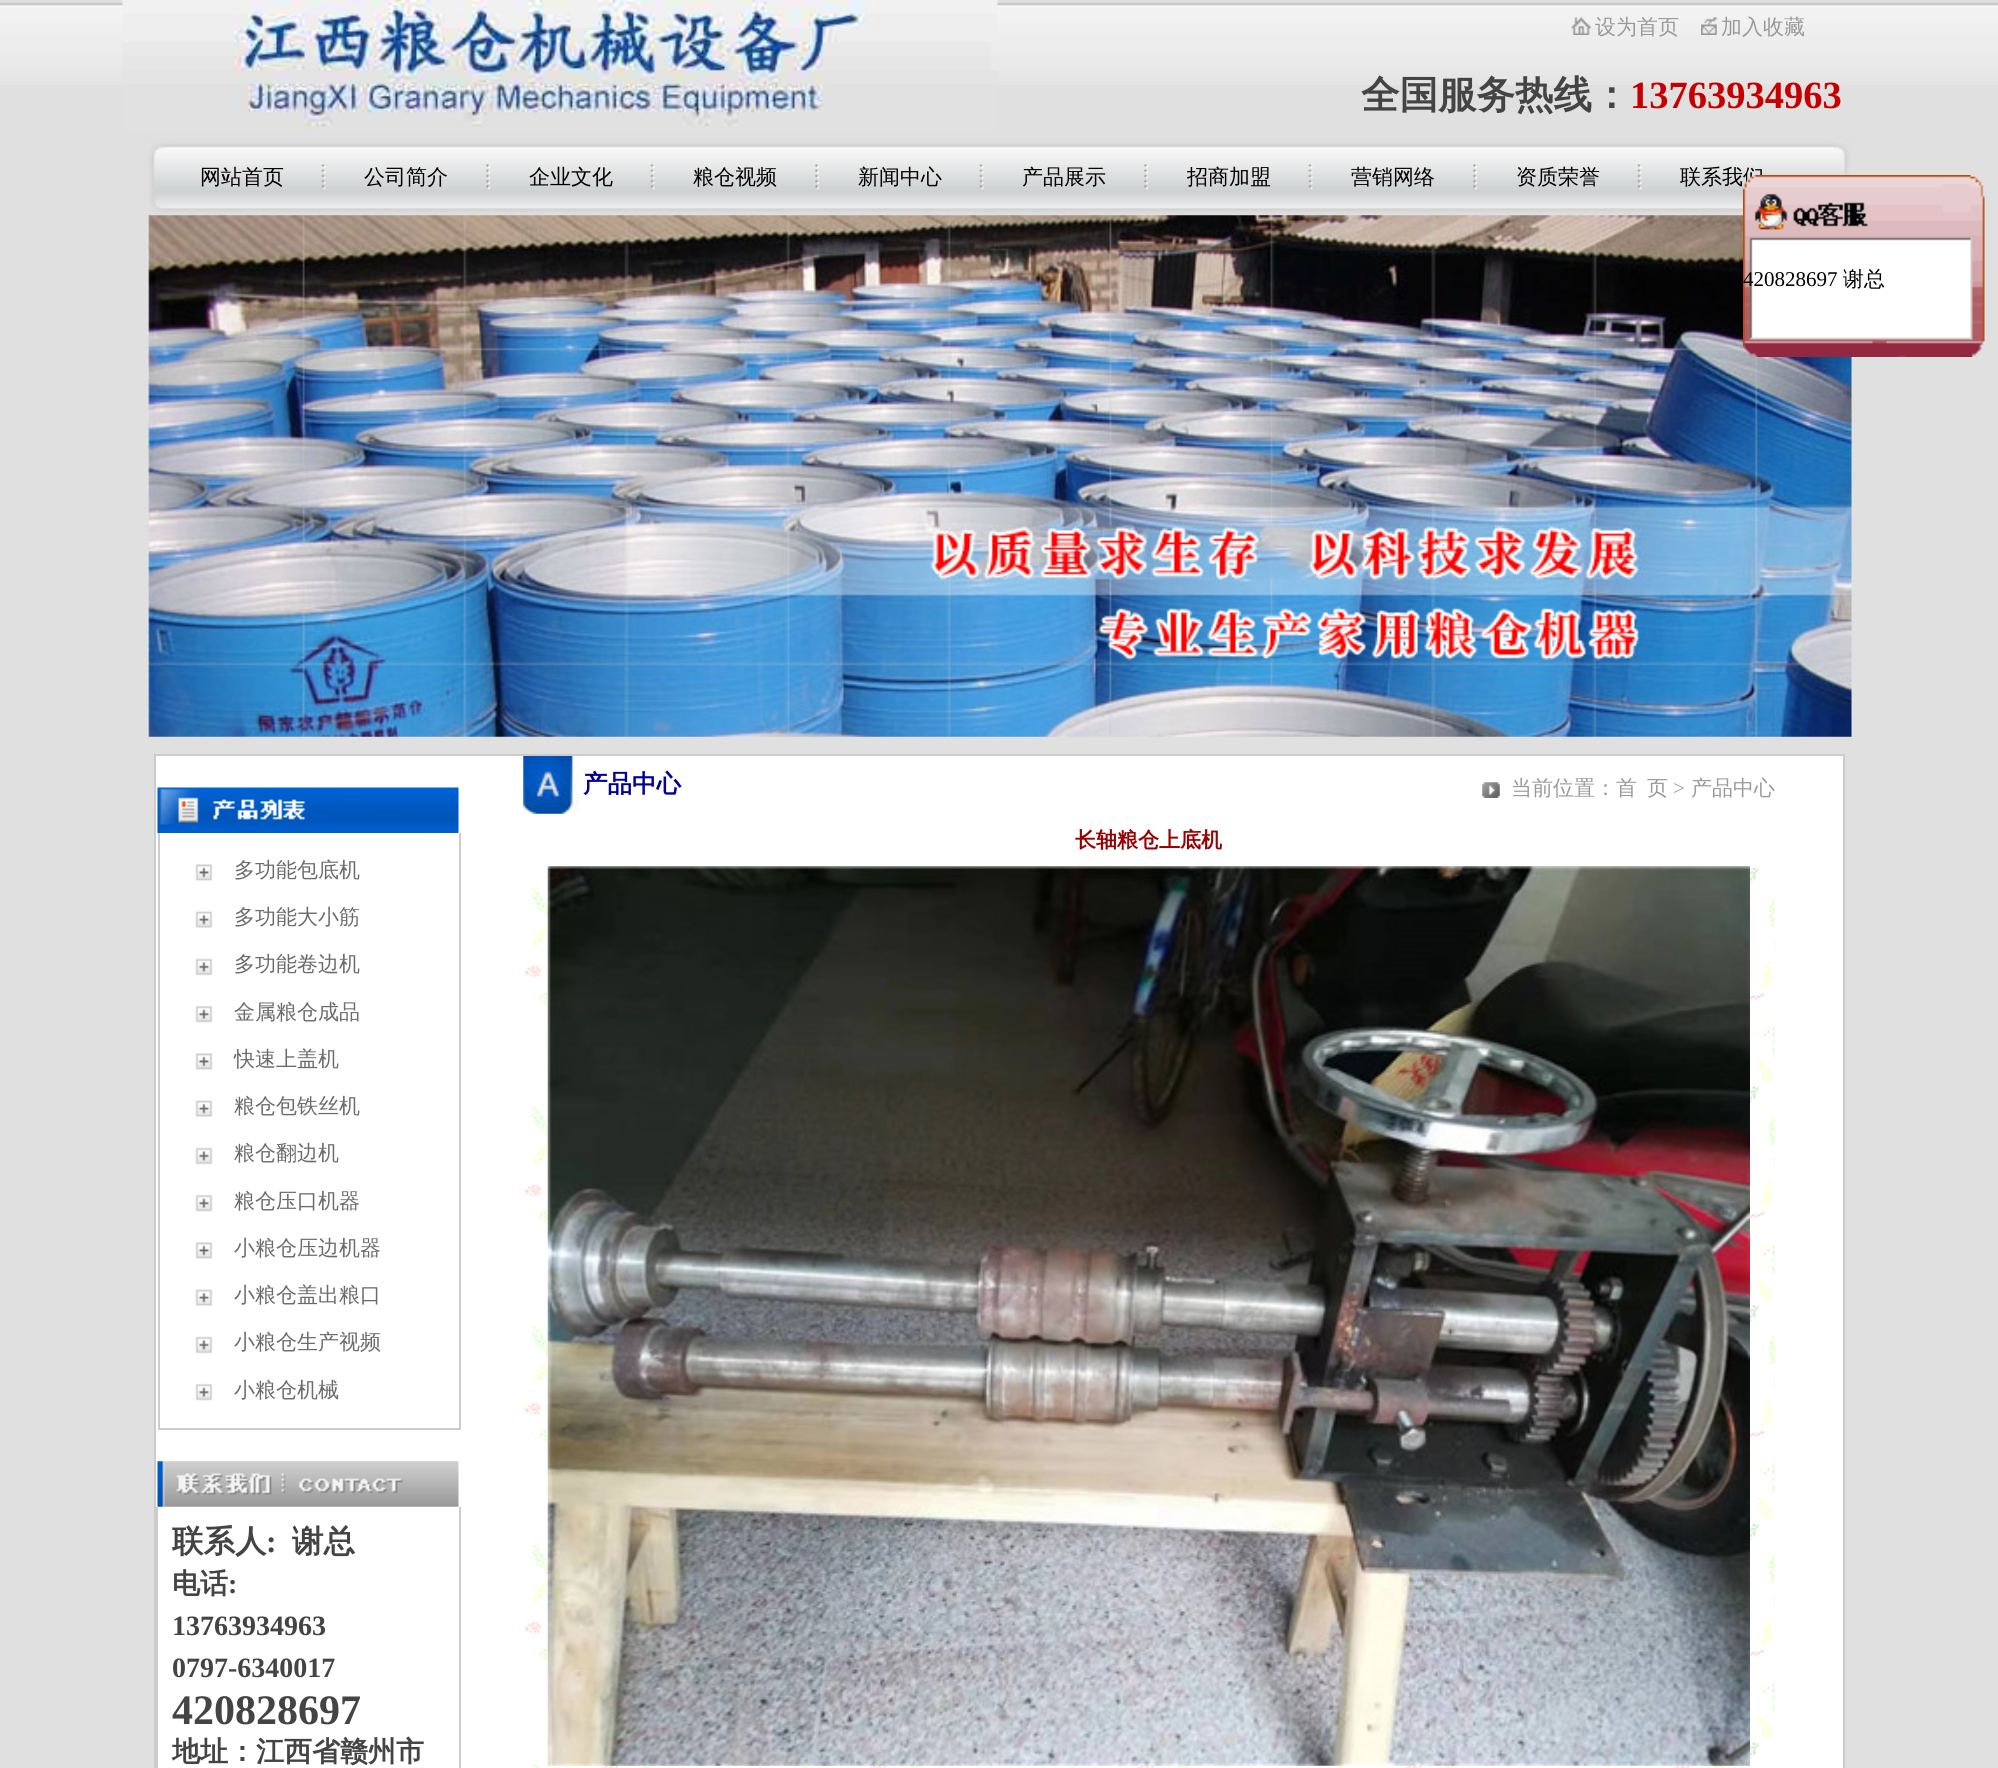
import math
import cairo

surface = cairo.ImageSurface(cairo.Format.RGB24, 1998, 1768)
ctx = cairo.Context(surface)
options = cairo.FontOptions()
options.set_hint_metrics(cairo.HintMetrics.OFF)
options.set_hint_style(cairo.HintStyle.NONE)
ctx.set_font_options(options)
ctx.set_miter_limit(4)


def ink(r, g, b):
    ctx.set_source_rgb(r / 255, g / 255, b / 255)


def write(x, y, s, family, size, color, bold=False, italic=False):
    ctx.select_font_face(family, cairo.FontSlant.ITALIC if italic else cairo.FontSlant.NORMAL, cairo.FontWeight.BOLD if bold else cairo.FontWeight.NORMAL)
    ctx.set_font_size(size)
    ink(*color)
    ctx.move_to(x, y)
    ctx.show_text(s)


def block(x, y, w, h, *color):
    ink(*color)
    ctx.rectangle(x, y, w, h)
    ctx.fill()


def paste(path, x, y, w, h):
    ctx.save()
    ctx.set_source_surface(cairo.ImageSurface.create_from_png(path), x, y)
    ctx.rectangle(x, y, w, h)
    ctx.fill()
    ctx.restore()


s1 = dict(family="WenQuanYi Zen Hei Medium", size=21, color=(153, 153, 153))
s2 = dict(family="WenQuanYi Zen Hei", size=38.5, color=(68, 68, 68), bold=True)
s3 = dict(family="Liberation Serif", size=38.5, color=(198, 0, 0), bold=True)
s4 = dict(family="WenQuanYi Zen Hei Medium", size=21, color=(0, 0, 0))
s5 = dict(family="WenQuanYi Zen Hei", size=24.5, color=(0, 0, 153), bold=True)
s6 = dict(family="Liberation Serif", size=21, color=(153, 153, 153))
s7 = dict(family="WenQuanYi Zen Hei", size=21, color=(153, 0, 0), bold=True)
s8 = dict(family="WenQuanYi Zen Hei Medium", size=21, color=(107, 107, 107))
s9 = dict(family="WenQuanYi Zen Hei", size=31.5, color=(68, 68, 68), bold=True)
s10 = dict(family="Liberation Serif", size=31.5, color=(68, 68, 68), bold=True)
s11 = dict(family="WenQuanYi Zen Hei", size=28, color=(68, 68, 68), bold=True)
s12 = dict(family="Liberation Serif", size=28, color=(68, 68, 68), bold=True)
s13 = dict(family="Liberation Serif", size=42, color=(68, 68, 68), bold=True)
s14 = dict(family="Liberation Serif", size=21, color=(0, 0, 0))

ink(224, 224, 224)
ctx.paint()
paste("pic1.png", 0, 2, 1998, 83)
paste("pic2.png", 122, 0, 876, 135)
paste("pic3.png", 1571, 17, 20, 18)
write(1595, 34, "设为首页", **s1)
paste("pic4.png", 1701, 17, 16, 18)
write(1721, 34, "加入收藏", **s1)
write(1361, 108, "全国服务热线：", **s2)
write(1630, 108, "13763934963", **s3)
paste("pic5.png", 145, 135, 1708, 84)
paste("pic6.png", 145, 135, 1677, 84)
paste("pic7.png", 321, 164, 5, 26)
write(200, 184, "网站首页", **s4)
paste("pic8.png", 486, 164, 4, 26)
write(364, 184, "公司简介", **s4)
paste("pic7.png", 650, 164, 5, 26)
write(529, 184, "企业文化", **s4)
paste("pic8.png", 815, 164, 4, 26)
write(693, 184, "粮仓视频", **s4)
paste("pic7.png", 979, 164, 5, 26)
write(858, 184, "新闻中心", **s4)
paste("pic8.png", 1144, 164, 4, 26)
write(1022, 184, "产品展示", **s4)
paste("pic7.png", 1308, 164, 5, 26)
write(1187, 184, "招商加盟", **s4)
paste("pic8.png", 1473, 164, 4, 26)
write(1351, 184, "营销网络", **s4)
paste("pic7.png", 1637, 164, 5, 26)
write(1516, 184, "资质荣誉", **s4)
write(1680, 184, "联系我们", **s4)
paste("pic9.png", 147, 215, 1705, 522)
block(156, 756, 1687, 1012, 255, 255, 255)
block(154, 754, 1691, 2, 204, 204, 204)
block(1843, 754, 2, 1014, 204, 204, 204)
block(154, 754, 2, 1014, 204, 204, 204)
paste("pic10.png", 523, 756, 57, 58)
write(583, 792, "产品中心", **s5)
paste("pic11.png", 1482, 782, 18, 16)
write(1511, 795, "当前位置：首", **s1)
write(1647, 795, "页", **s1)
write(1673, 795, ">", **s6)
write(1691, 795, "产品中心", **s1)
write(1075, 847, "长轴粮仓上底机", **s7)
paste("pic12.png", 523, 867, 1252, 901)
paste("pic13.png", 547, 866, 1203, 900)
paste("pic14.png", 157, 787, 302, 46)
block(459, 833, 2, 597, 204, 204, 204)
block(158, 1428, 302, 2, 204, 204, 204)
block(158, 833, 2, 597, 204, 204, 204)
paste("pic15.png", 195, 864, 18, 17)
write(234, 877, "多功能包底机", **s8)
paste("pic16.png", 195, 911, 18, 17)
write(234, 924, "多功能大小筋", **s8)
paste("pic17.png", 195, 958, 18, 18)
write(234, 971, "多功能卷边机", **s8)
paste("pic18.png", 195, 1005, 18, 18)
write(234, 1019, "金属粮仓成品", **s8)
paste("pic15.png", 195, 1053, 18, 17)
write(234, 1066, "快速上盖机", **s8)
paste("pic16.png", 195, 1100, 18, 17)
write(234, 1113, "粮仓包铁丝机", **s8)
paste("pic17.png", 195, 1147, 18, 18)
write(234, 1160, "粮仓翻边机", **s8)
paste("pic18.png", 195, 1194, 18, 18)
write(234, 1208, "粮仓压口机器", **s8)
paste("pic15.png", 195, 1242, 18, 17)
write(234, 1255, "小粮仓压边机器", **s8)
paste("pic16.png", 195, 1289, 18, 17)
write(234, 1302, "小粮仓盖出粮口", **s8)
paste("pic17.png", 195, 1336, 18, 18)
write(234, 1349, "小粮仓生产视频", **s8)
paste("pic18.png", 195, 1383, 18, 18)
write(234, 1397, "小粮仓机械", **s8)
paste("pic19.png", 157, 1461, 302, 46)
block(459, 1507, 2, 261, 204, 204, 204)
block(156, 1507, 2, 261, 204, 204, 204)
write(172, 1552, "联系人", **s9)
write(266, 1552, ":", **s10)
write(292, 1552, "谢总", **s9)
write(172, 1593, "电话", **s11)
write(228, 1593, ":", **s12)
write(172, 1635, "13763934963", **s12)
write(172, 1677, "0797-6340017", **s12)
write(172, 1724, "420828697", **s13)
write(172, 1761, "地址：江西省赣州市", **s11)
paste("pic20.png", 1743, 175, 242, 182)
write(1743, 286, "420828697", **s14)
write(1843, 286, "谢总", **s4)
surface.write_to_png("screenshot.png")
